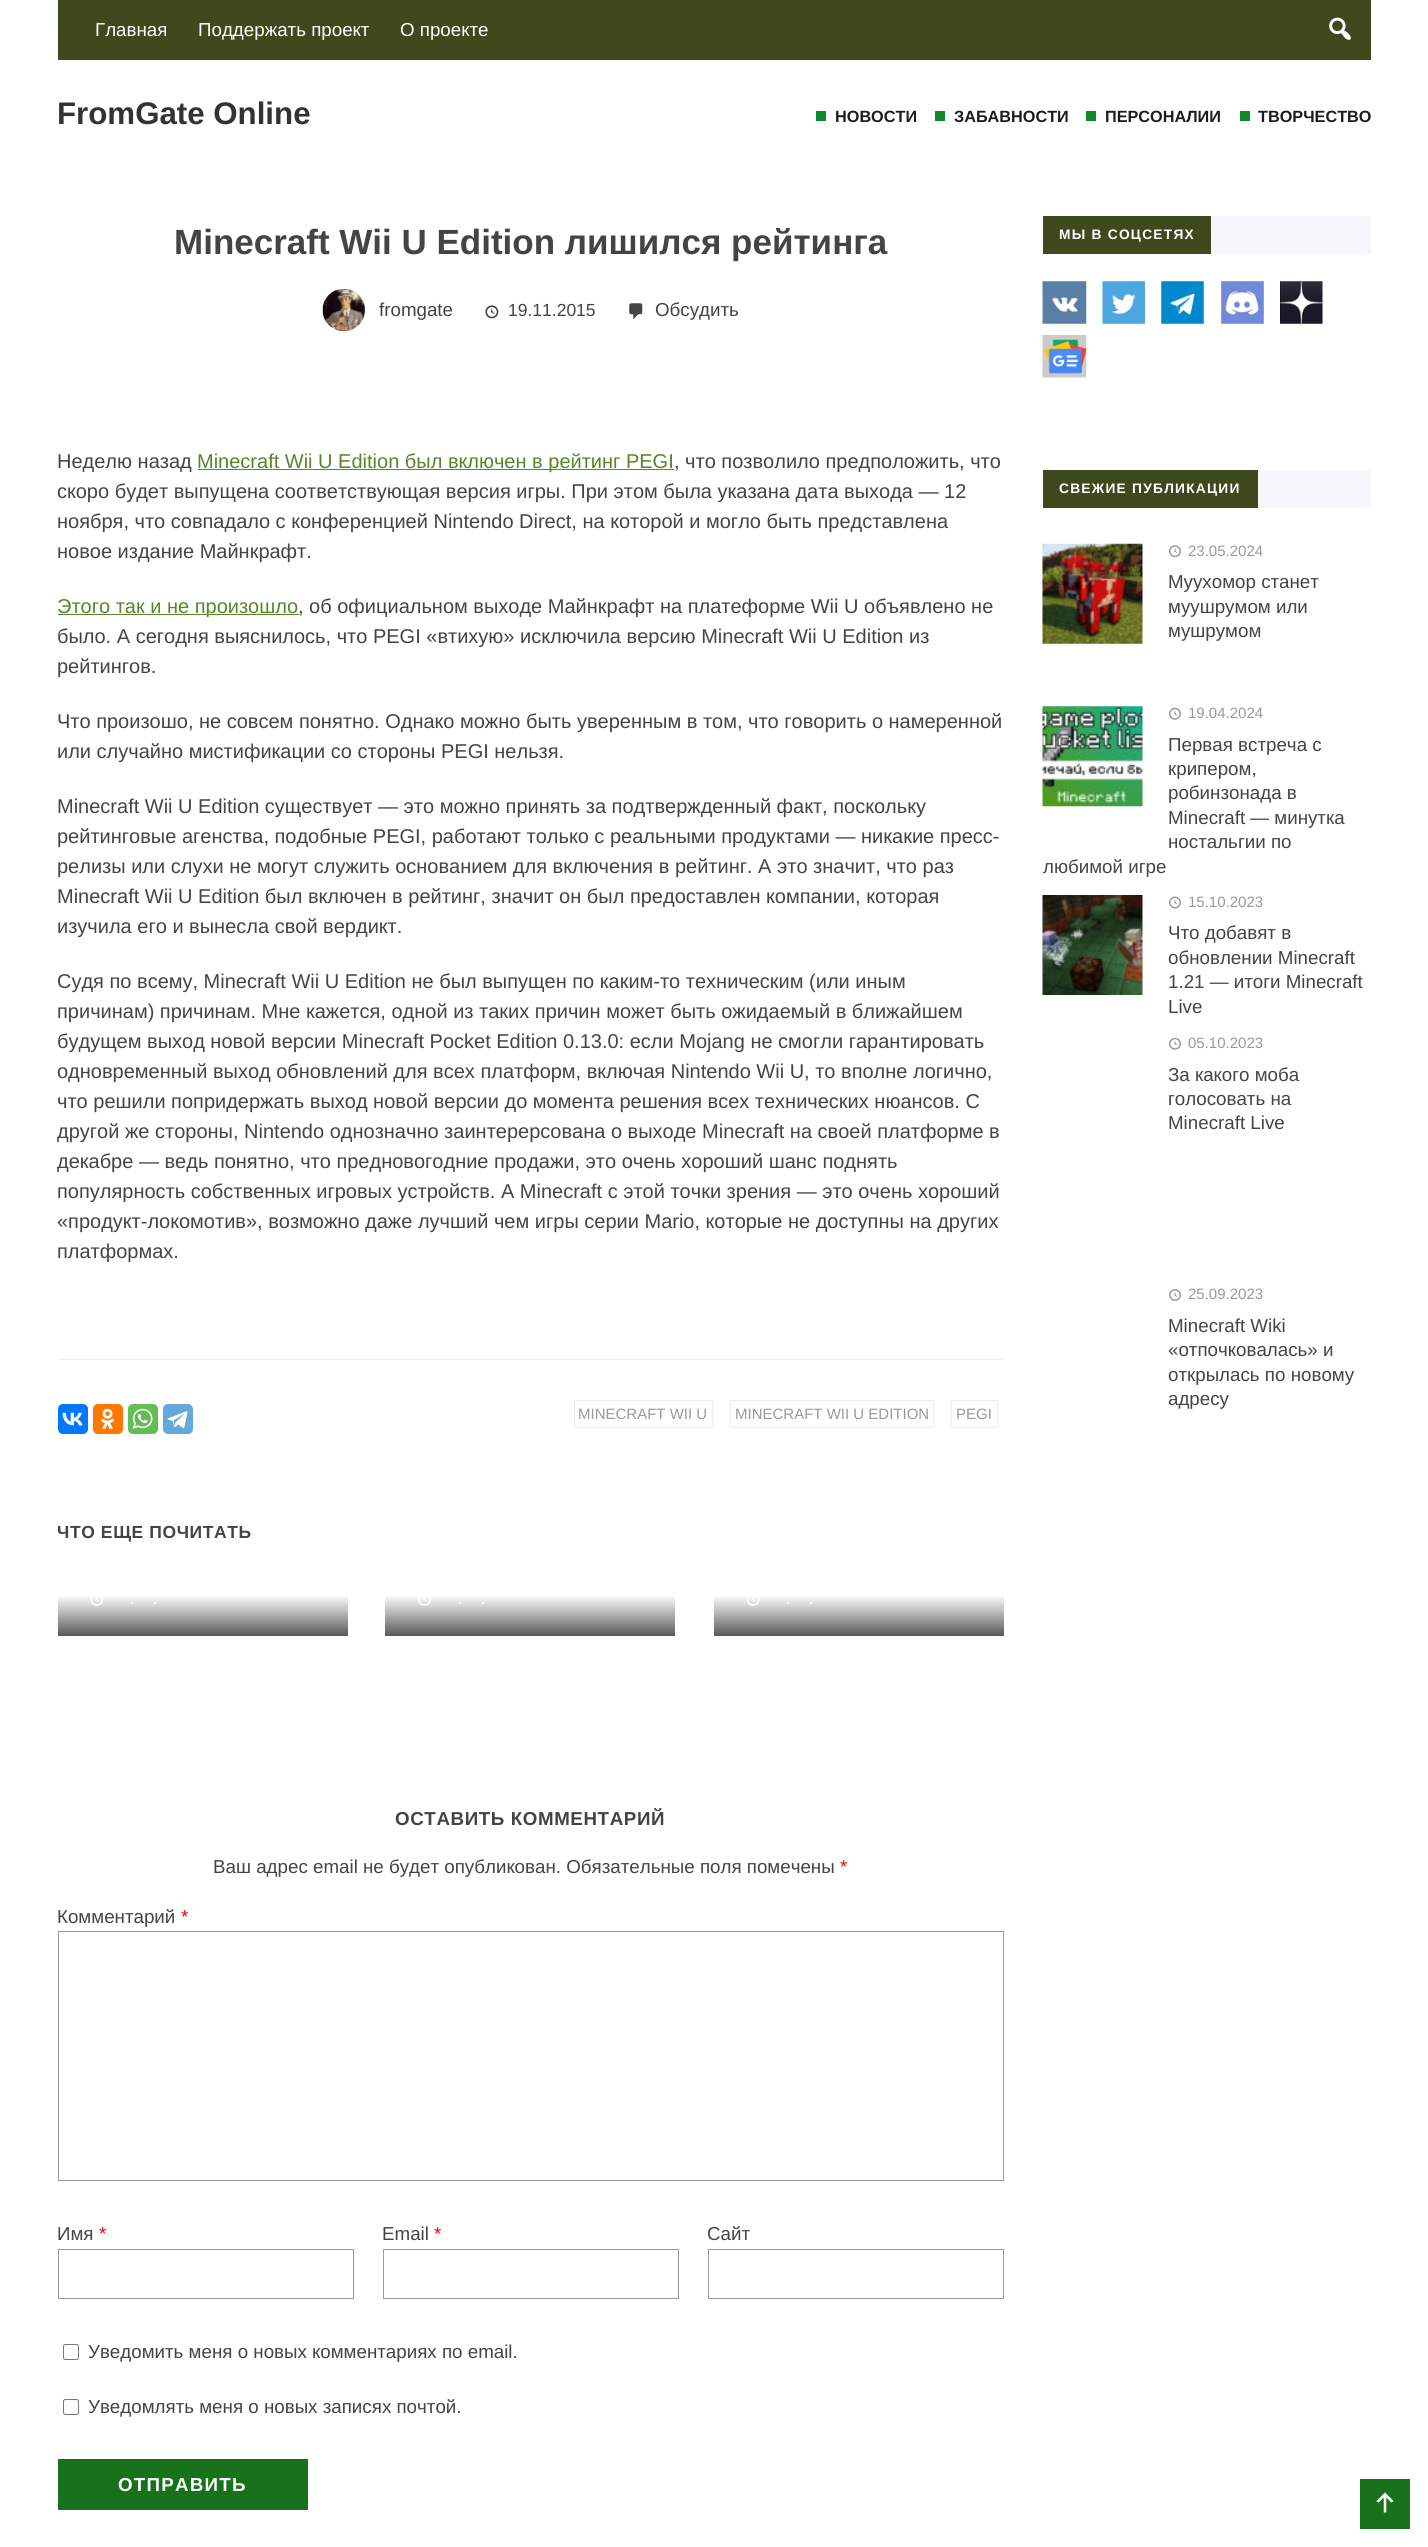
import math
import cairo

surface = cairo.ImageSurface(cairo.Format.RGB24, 1428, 2547)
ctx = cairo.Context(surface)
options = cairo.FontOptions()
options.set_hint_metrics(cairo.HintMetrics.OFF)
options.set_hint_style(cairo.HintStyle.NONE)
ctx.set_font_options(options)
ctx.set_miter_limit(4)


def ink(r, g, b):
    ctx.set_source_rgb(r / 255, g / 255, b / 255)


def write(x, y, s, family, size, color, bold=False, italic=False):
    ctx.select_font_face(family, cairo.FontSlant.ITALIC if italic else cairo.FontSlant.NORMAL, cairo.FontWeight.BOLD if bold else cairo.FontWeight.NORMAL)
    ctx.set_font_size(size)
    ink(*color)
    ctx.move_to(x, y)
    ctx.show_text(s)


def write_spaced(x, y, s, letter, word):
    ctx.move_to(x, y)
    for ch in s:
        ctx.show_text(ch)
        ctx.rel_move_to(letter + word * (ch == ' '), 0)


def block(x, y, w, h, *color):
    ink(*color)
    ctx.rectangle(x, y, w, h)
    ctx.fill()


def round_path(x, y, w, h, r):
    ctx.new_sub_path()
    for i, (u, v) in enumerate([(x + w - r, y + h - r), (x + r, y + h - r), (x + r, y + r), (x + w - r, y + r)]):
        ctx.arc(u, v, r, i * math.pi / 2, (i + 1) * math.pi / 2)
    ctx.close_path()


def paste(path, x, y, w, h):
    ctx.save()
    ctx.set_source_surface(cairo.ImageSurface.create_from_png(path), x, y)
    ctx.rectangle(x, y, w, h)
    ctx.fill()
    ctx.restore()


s1 = dict(family="Liberation Sans", size=18.75, color=(255, 255, 255))
s2 = dict(family="Liberation Sans", size=31.25, color=(51, 51, 51), bold=True)
s3 = dict(family="Liberation Sans", size=16.25, color=(28, 28, 28), bold=True)
s4 = dict(family="Liberation Sans", size=35, color=(68, 68, 68), bold=True)
s5 = dict(family="Liberation Sans", size=18.75, color=(68, 68, 68))
s6 = dict(family="Liberation Sans", size=17.5, color=(68, 68, 68))
s7 = dict(family="Liberation Sans", size=20, color=(68, 68, 68))
s8 = dict(family="Liberation Sans", size=20, color=(83, 135, 40))
s9 = dict(family="Liberation Sans", size=15, color=(153, 153, 153))
s10 = dict(family="Liberation Sans", size=16.25, color=(255, 255, 255))
s11 = dict(family="Liberation Sans", size=18.75, color=(255, 0, 0))

ink(255, 255, 255)
ctx.paint()
block(58, 0, 1313, 60, 63, 73, 30)
write(95, 36, "Главная", **s1)
write(198, 36, "Поддержать проект", **s1)
write(400, 36, "О проекте", **s1)
paste("pic1.png", 1329, 17, 22, 23)
write(57, 124, "FromGate Online", **s2)
block(816, 111, 10, 10, 16, 137, 42)
write(835, 122, "НОВОСТИ", **s3)
block(935, 111, 10, 10, 16, 137, 42)
write(954, 122, "ЗАБАВНОСТИ", **s3)
block(1086, 111, 10, 10, 16, 137, 42)
write(1105, 122, "ПЕРСОНАЛИИ", **s3)
block(1240, 111, 10, 10, 16, 137, 42)
write(1258, 122, "ТВОРЧЕСТВО", **s3)
write(174, 254, "Minecraft Wii U Edition лишился рейтинга", **s4)
paste("pic2.png", 322, 288, 43, 44)
write(379, 316, "fromgate", **s5)
paste("pic3.png", 485, 305, 14, 14)
write(508, 316, "19.11.2015", **s6)
paste("pic4.png", 629, 303, 14, 17)
write(655, 316, "Обсудить", **s5)
write(57, 468, "Неделю назад", **s7)
block(198, 469, 476, 1, 83, 135, 40)
write(197, 468, "Minecraft Wii U Edition был включен в рейтинг PEGI", **s8)
write(674, 468, ", что позволило предположить, что", **s7)
write(57, 498, "скоро будет выпущена соответствующая версия игры. При этом была указана дата выхода — 12", **s7)
write(57, 528, "ноября, что совпадало с конференцией Nintendo Direct, на которой и могло быть представлена", **s7)
write(57, 558, "новое издание Майнкрафт.", **s7)
block(58, 614, 241, 1, 83, 135, 40)
write(57, 613, "Этого так и не произошло", **s8)
write(298, 613, ", об официальном выходе Майнкрафт на платеформе Wii U объявлено не", **s7)
write(57, 643, "было. А сегодня выяснилось, что PEGI «втихую» исключила версию Minecraft Wii U Edition из", **s7)
write(57, 673, "рейтингов.", **s7)
write(57, 728, "Что произошо, не совсем понятно. Однако можно быть уверенным в том, что говорить о намеренной", **s7)
write(57, 758, "или случайно мистификации со стороны PEGI нельзя.", **s7)
write(57, 813, "Minecraft Wii U Edition существует — это можно принять за подтвержденный факт, поскольку", **s7)
write(57, 843, "рейтинговые агенства, подобные PEGI, работают только с реальными продуктами — никакие пресс-", **s7)
write(57, 873, "релизы или слухи не могут служить основанием для включения в рейтинг. А это значит, что раз", **s7)
write(57, 903, "Minecraft Wii U Edition был включен в рейтинг, значит он был предоставлен компании, которая", **s7)
write(57, 933, "изучила его и вынесла свой вердикт.", **s7)
write(57, 988, "Судя по всему, Minecraft Wii U Edition не был выпущен по каким-то техническим (или иным", **s7)
write(57, 1018, "причинам) причинам. Мне кажется, одной из таких причин может быть ожидаемый в ближайшем", **s7)
write(57, 1048, "будущем выход новой версии Minecraft Pocket Edition 0.13.0: если Mojang не смогли гарантировать", **s7)
write(57, 1078, "одновременный выход обновлений для всех платформ, включая Nintendo Wii U, то вполне логично,", **s7)
write(57, 1108, "что решили попридержать выход новой версии до момента решения всех технических нюансов. С", **s7)
write(57, 1138, "другой же стороны, Nintendo однозначно заинтерерсована о выходе Minecraft на своей платформе в", **s7)
write(57, 1168, "декабре — ведь понятно, что предновогодние продажи, это очень хороший шанс поднять", **s7)
write(57, 1198, "популярность собственных игровых устройств. А Minecraft с этой точки зрения — это очень хороший", **s7)
write(57, 1228, "«продукт-локомотив», возможно даже лучший чем игры серии Mario, которые не доступны на других", **s7)
write(57, 1258, "платформах.", **s7)
block(58, 1359, 946, 1, 238, 238, 239)
ink(0, 119, 255)
round_path(58, 1404, 30, 30, 5)
ctx.fill()
paste("pic5.png", 62, 1412, 21, 14)
ink(255, 119, 0)
round_path(93, 1404, 30, 30, 5)
ctx.fill()
paste("pic6.png", 100, 1408, 15, 21)
ink(101, 188, 84)
round_path(128, 1404, 30, 30, 5)
ctx.fill()
paste("pic7.png", 132, 1408, 21, 21)
ink(100, 169, 220)
round_path(163, 1404, 30, 30, 5)
ctx.fill()
paste("pic8.png", 167, 1411, 21, 17)
ctx.rectangle(574.5, 1400.5, 138, 27)
ink(238, 238, 239)
ctx.set_line_width(1)
ctx.stroke()
write(578, 1419, "MINECRAFT WII U", **s9)
ctx.rectangle(730.5, 1400.5, 203, 27)
ink(238, 238, 239)
ctx.stroke()
write(735, 1419, "MINECRAFT WII U EDITION", **s9)
ctx.rectangle(951.5, 1400.5, 46, 27)
ink(238, 238, 239)
ctx.stroke()
write(956, 1419, "PEGI", **s9)
ctx.select_font_face("Liberation Sans", cairo.FontSlant.NORMAL, cairo.FontWeight.BOLD)
ctx.set_font_size(17.5)
ink(68, 68, 68)
write_spaced(57, 1538, "ЧТО ЕЩЕ ПОЧИТАТЬ", 0.6, 0)
gradient = cairo.LinearGradient(203, 1595, 203, 1636)
gradient.add_color_stop_rgba(0, 1, 1, 1, 1)
gradient.add_color_stop_rgba(1, 0.349, 0.349, 0.349, 1)
ctx.set_source(gradient)
ctx.rectangle(58, 1596, 290, 40)
ctx.fill()
paste("pic9.png", 90, 1596, 14, 10)
write(130, 1604, ".", **s10)
write(153, 1604, ".", **s10)
gradient = cairo.LinearGradient(530, 1595, 530, 1636)
gradient.add_color_stop_rgba(0, 1, 1, 1, 1)
gradient.add_color_stop_rgba(1, 0.349, 0.349, 0.349, 1)
ctx.set_source(gradient)
ctx.rectangle(385, 1596, 290, 40)
ctx.fill()
paste("pic10.png", 418, 1596, 13, 10)
write(458, 1604, ".", **s10)
write(481, 1604, ".", **s10)
gradient = cairo.LinearGradient(859, 1595, 859, 1636)
gradient.add_color_stop_rgba(0, 1, 1, 1, 1)
gradient.add_color_stop_rgba(1, 0.349, 0.349, 0.349, 1)
ctx.set_source(gradient)
ctx.rectangle(714, 1596, 290, 40)
ctx.fill()
paste("pic11.png", 746, 1596, 14, 10)
write(786, 1604, ".", **s10)
write(809, 1604, ".", **s10)
ctx.select_font_face("Liberation Sans", cairo.FontSlant.NORMAL, cairo.FontWeight.BOLD)
ctx.set_font_size(18.75)
ink(68, 68, 68)
write_spaced(395, 1825, "ОСТАВИТЬ КОММЕНТАРИЙ", 0.6, 0)
write(213, 1873, "Ваш адрес email не будет опубликован. Обязательные поля помечены", **s5)
write(840, 1873, "*", **s11)
write(57, 1923, "Комментарий", **s5)
write(181, 1923, "*", **s11)
ctx.rectangle(58.5, 1931.5, 945, 249)
ink(153, 153, 153)
ctx.stroke()
write(57, 2240, "Имя", **s5)
write(99, 2240, "*", **s11)
ctx.rectangle(58.5, 2249.5, 295, 49)
ink(153, 153, 153)
ctx.stroke()
write(382, 2240, "Email", **s5)
write(434, 2240, "*", **s11)
ctx.rectangle(383.5, 2249.5, 295, 49)
ink(153, 153, 153)
ctx.stroke()
write(707, 2240, "Сайт", **s5)
ctx.rectangle(708.5, 2249.5, 295, 49)
ink(153, 153, 153)
ctx.stroke()
round_path(63.5, 2344.5, 15, 15, 2)
ink(118, 118, 118)
ctx.stroke()
write(88, 2358, "Уведомить меня о новых комментариях по email.", **s5)
round_path(63.5, 2399.5, 15, 15, 2)
ink(118, 118, 118)
ctx.stroke()
write(88, 2413, "Уведомлять меня о новых записях почтой.", **s5)
block(58, 2459, 250, 51, 24, 114, 28)
ctx.select_font_face("Liberation Sans", cairo.FontSlant.NORMAL, cairo.FontWeight.BOLD)
ink(255, 255, 255)
write_spaced(118, 2491, "ОТПРАВИТЬ", 1.25, 0)
block(1211, 216, 160, 38, 246, 247, 252)
block(1043, 216, 168, 38, 63, 73, 30)
ctx.set_font_size(13.75)
ink(255, 255, 255)
write_spaced(1059, 239, "МЫ В СОЦСЕТЯХ", 1.25, 0)
paste("pic12.png", 1042, 281, 45, 43)
paste("pic13.png", 1102, 281, 43, 43)
paste("pic14.png", 1161, 281, 43, 43)
paste("pic15.png", 1221, 281, 43, 43)
paste("pic16.png", 1280, 281, 43, 43)
paste("pic17.png", 1042, 335, 45, 43)
block(1258, 470, 113, 38, 246, 247, 252)
block(1043, 470, 215, 38, 63, 73, 30)
ink(255, 255, 255)
write_spaced(1059, 493, "СВЕЖИЕ ПУБЛИКАЦИИ", 1.25, 0)
paste("pic18.png", 1042, 543, 101, 101)
paste("pic19.png", 1169, 545, 12, 13)
write(1188, 556, "23.05.2024", **s9)
write(1168, 588, "Муухомор станет", **s5)
write(1168, 613, "муушрумом или", **s5)
write(1168, 637, "мушрумом", **s5)
paste("pic20.png", 1042, 706, 101, 101)
paste("pic21.png", 1169, 707, 12, 13)
write(1188, 718, "19.04.2024", **s9)
write(1168, 751, "Первая встреча с", **s5)
write(1168, 775, "крипером,", **s5)
write(1168, 799, "робинзонада в", **s5)
write(1168, 824, "Minecraft — минутка", **s5)
write(1168, 848, "ностальгии по", **s5)
write(1043, 873, "любимой игре", **s5)
paste("pic22.png", 1042, 895, 101, 100)
paste("pic23.png", 1169, 896, 12, 13)
write(1188, 907, "15.10.2023", **s9)
write(1168, 939, "Что добавят в", **s5)
write(1168, 964, "обновлении Minecraft", **s5)
write(1168, 988, "1.21 — итоги Minecraft", **s5)
write(1168, 1013, "Live", **s5)
paste("pic21.png", 1169, 1037, 12, 13)
write(1188, 1048, "05.10.2023", **s9)
write(1168, 1081, "За какого моба", **s5)
write(1168, 1105, "голосовать на", **s5)
write(1168, 1129, "Minecraft Live", **s5)
paste("pic24.png", 1169, 1289, 12, 12)
write(1188, 1299, "25.09.2023", **s9)
write(1168, 1332, "Minecraft Wiki", **s5)
write(1168, 1356, "«отпочковалась» и", **s5)
write(1168, 1381, "открылась по новому", **s5)
write(1168, 1405, "адресу", **s5)
block(1360, 2479, 50, 50, 24, 114, 28)
paste("pic25.png", 1376, 2492, 18, 21)
surface.write_to_png("screenshot.png")
